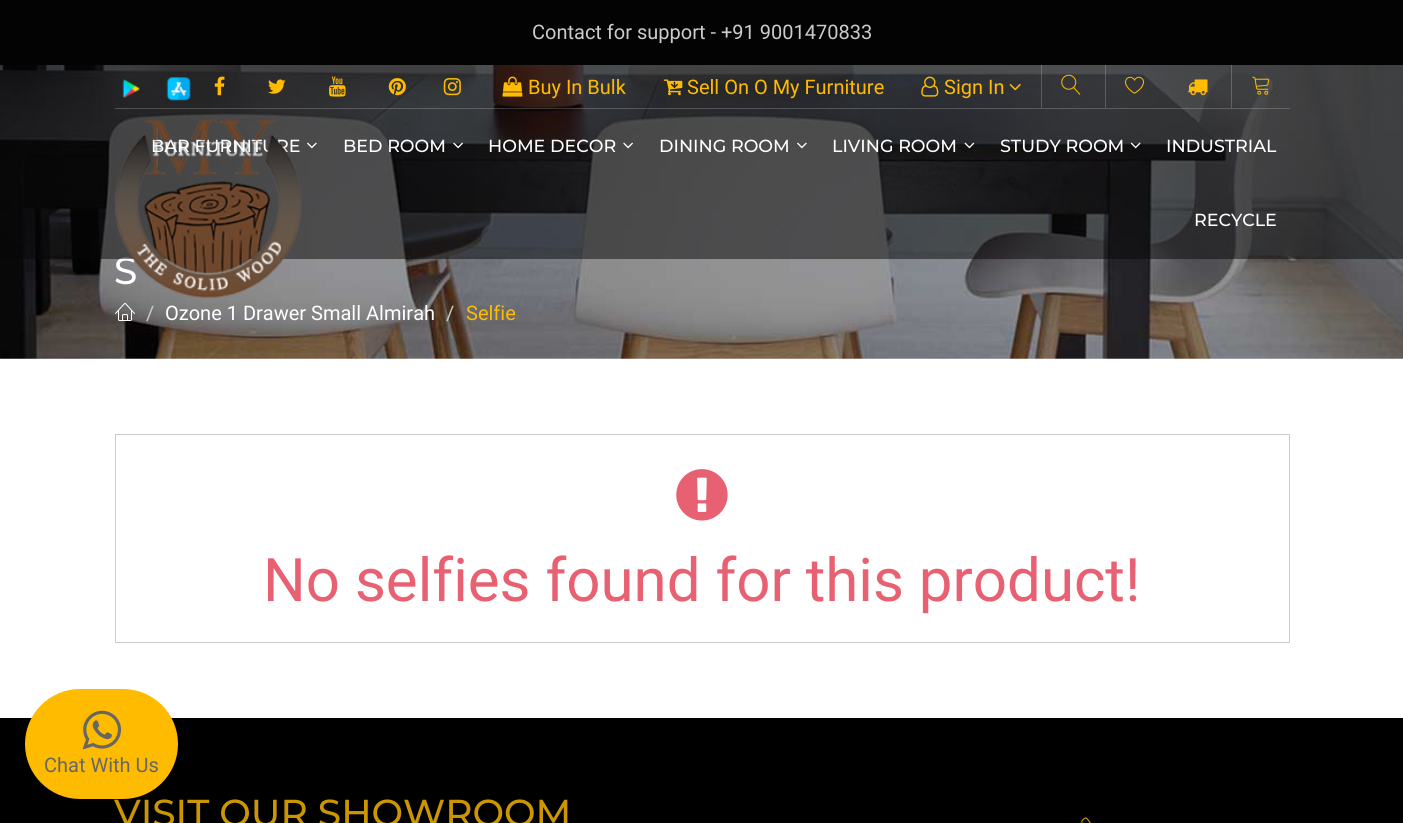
import math
import cairo

surface = cairo.ImageSurface(cairo.Format.RGB24, 1403, 823)
ctx = cairo.Context(surface)
options = cairo.FontOptions()
options.set_hint_metrics(cairo.HintMetrics.OFF)
options.set_hint_style(cairo.HintStyle.NONE)
ctx.set_font_options(options)
ctx.set_miter_limit(4)


def ink(r, g, b):
    ctx.set_source_rgb(r / 255, g / 255, b / 255)


def write(x, y, s, family, size, color, bold=False, italic=False):
    ctx.select_font_face(family, cairo.FontSlant.ITALIC if italic else cairo.FontSlant.NORMAL, cairo.FontWeight.BOLD if bold else cairo.FontWeight.NORMAL)
    ctx.set_font_size(size)
    ink(*color)
    ctx.move_to(x, y)
    ctx.show_text(s)


def block(x, y, w, h, *color):
    ink(*color)
    ctx.rectangle(x, y, w, h)
    ctx.fill()


def round_path(x, y, w, h, r):
    ctx.new_sub_path()
    for i, (u, v) in enumerate([(x + w - r, y + h - r), (x + r, y + h - r), (x + r, y + r), (x + w - r, y + r)]):
        ctx.arc(u, v, r, i * math.pi / 2, (i + 1) * math.pi / 2)
    ctx.close_path()


def paste(path, x, y, w, h):
    ctx.save()
    ctx.set_source_surface(cairo.ImageSurface.create_from_png(path), x, y)
    ctx.rectangle(x, y, w, h)
    ctx.fill()
    ctx.restore()


s1 = dict(family="Montserrat Medium", size=37.5, color=(255, 255, 255))
s2 = dict(family="Roboto", size=20, color=(204, 204, 204))
s3 = dict(family="Roboto", size=20, color=(255, 187, 0))
s4 = dict(family="Montserrat Medium", size=17.5, color=(255, 255, 255))
s5 = dict(family="Roboto", size=20, color=(255, 255, 255))
s6 = dict(family="Roboto", size=60, color=(232, 97, 114))
s7 = dict(family="Roboto", size=20, color=(102, 102, 102))
s8 = dict(family="Montserrat Medium", size=37.5, color=(204, 150, 0))

ink(255, 255, 255)
ctx.paint()
paste("pic23.png", 0, 65, 1403, 294)
write(114, 284, "S", **s1)
ctx.set_source_rgba(0.024, 0.024, 0.024, 0.5)
ctx.rectangle(0, 65, 1403, 194)
ctx.fill()
block(0, 0, 1403, 65, 3, 3, 3)
write(532, 39, "Contact for support - +91 9001470833", **s2)
ctx.set_source_rgba(1, 1, 1, 0.2)
ctx.rectangle(115, 108, 1175, 1)
ctx.fill()
paste("pic1.png", 122, 79, 18, 20)
paste("pic2.png", 166, 77, 25, 24)
paste("pic3.png", 214, 76, 11, 20)
paste("pic4.png", 268, 79, 18, 15)
paste("pic5.png", 329, 76, 17, 21)
paste("pic6.png", 388, 78, 18, 18)
paste("pic7.png", 443, 78, 18, 18)
paste("pic8.png", 502, 76, 21, 21)
write(528, 94, "Buy In Bulk", **s3)
paste("pic9.png", 663, 79, 20, 17)
write(687, 94, "Sell On O My Furniture", **s3)
paste("pic10.png", 921, 76, 18, 21)
write(944, 94, "Sign In", **s3)
paste("pic11.png", 1009, 83, 12, 8)
ctx.set_source_rgba(1, 1, 1, 0.2)
ctx.rectangle(1041, 65, 1, 43)
ctx.fill()
paste("pic12.png", 1061, 74, 20, 21)
ctx.rectangle(1105, 65, 1, 43)
ctx.fill()
paste("pic13.png", 1125, 76, 19, 18)
paste("pic14.png", 1188, 79, 20, 17)
ctx.rectangle(1231, 65, 1, 43)
ctx.fill()
paste("pic15.png", 1252, 76, 18, 19)
write(151, 152, "BAR FURNITURE", **s4)
paste("pic16.png", 114, 119, 188, 180)
paste("pic17.png", 307, 142, 10, 7)
write(343, 152, "BED ROOM", **s4)
paste("pic18.png", 453, 142, 10, 7)
write(488, 152, "HOME DECOR", **s4)
paste("pic19.png", 623, 142, 10, 7)
write(659, 152, "DINING ROOM", **s4)
paste("pic20.png", 797, 142, 10, 7)
write(832, 152, "LIVING ROOM", **s4)
paste("pic21.png", 964, 142, 11, 7)
write(1000, 152, "STUDY ROOM", **s4)
paste("pic22.png", 1130, 142, 11, 7)
write(1166, 152, "INDUSTRIAL", **s4)
write(1194, 226, "RECYCLE", **s4)
paste("pic24.png", 115, 303, 20, 18)
write(146, 320, "/", **s2)
write(165, 320, "Ozone 1 Drawer Small Almirah", **s5)
write(446, 320, "/", **s2)
write(466, 320, "Selfie", **s3)
ctx.rectangle(115.5, 434.5, 1174, 208)
ink(204, 204, 204)
ctx.set_line_width(1)
ctx.stroke()
paste("pic25.png", 676, 469, 52, 52)
write(263, 601, "No selfies found for this product!", **s6)
block(0, 718, 1403, 105, 0, 0, 0)
ink(255, 187, 0)
round_path(25, 689, 153, 110, 55)
ctx.fill()
paste("pic26.png", 82, 710, 40, 40)
write(44, 772, "Chat With Us", **s7)
write(114, 826, "VISIT OUR SHOWROOM", **s8)
paste("pic27.png", 1081, 817, 10, 6)
surface.write_to_png("screenshot.png")
